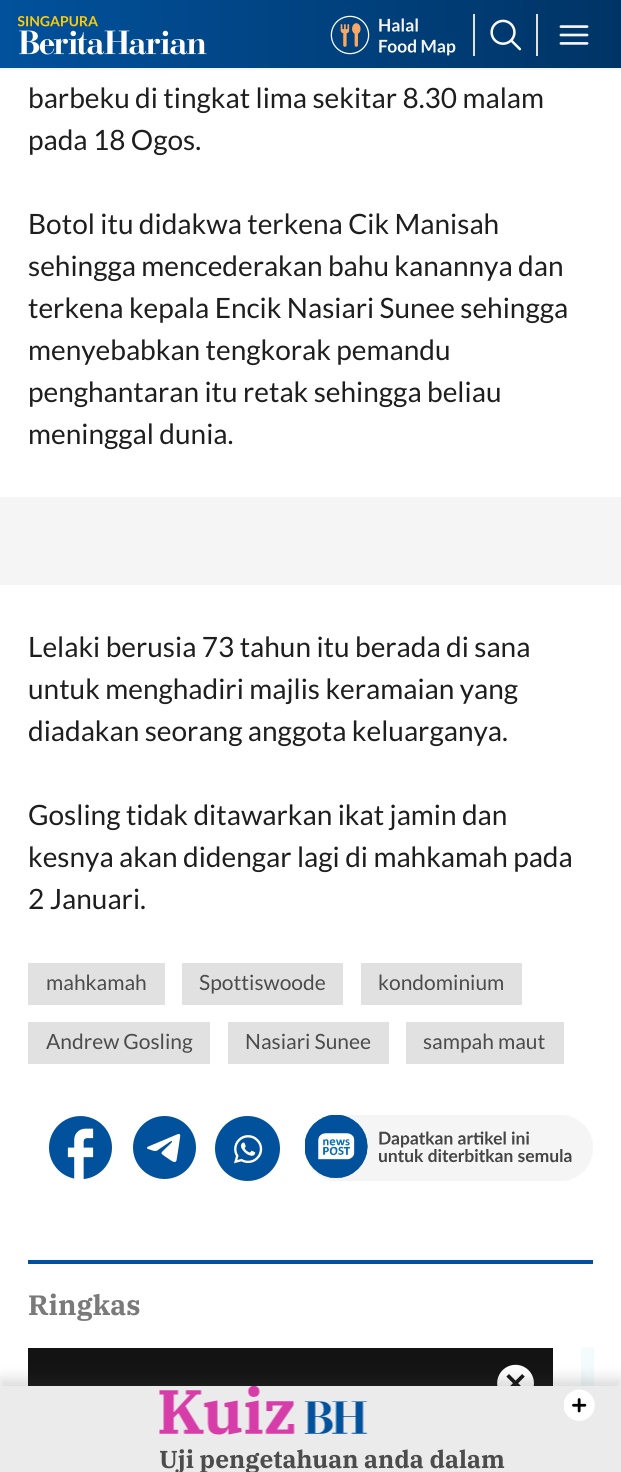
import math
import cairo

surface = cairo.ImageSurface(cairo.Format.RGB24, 621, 1472)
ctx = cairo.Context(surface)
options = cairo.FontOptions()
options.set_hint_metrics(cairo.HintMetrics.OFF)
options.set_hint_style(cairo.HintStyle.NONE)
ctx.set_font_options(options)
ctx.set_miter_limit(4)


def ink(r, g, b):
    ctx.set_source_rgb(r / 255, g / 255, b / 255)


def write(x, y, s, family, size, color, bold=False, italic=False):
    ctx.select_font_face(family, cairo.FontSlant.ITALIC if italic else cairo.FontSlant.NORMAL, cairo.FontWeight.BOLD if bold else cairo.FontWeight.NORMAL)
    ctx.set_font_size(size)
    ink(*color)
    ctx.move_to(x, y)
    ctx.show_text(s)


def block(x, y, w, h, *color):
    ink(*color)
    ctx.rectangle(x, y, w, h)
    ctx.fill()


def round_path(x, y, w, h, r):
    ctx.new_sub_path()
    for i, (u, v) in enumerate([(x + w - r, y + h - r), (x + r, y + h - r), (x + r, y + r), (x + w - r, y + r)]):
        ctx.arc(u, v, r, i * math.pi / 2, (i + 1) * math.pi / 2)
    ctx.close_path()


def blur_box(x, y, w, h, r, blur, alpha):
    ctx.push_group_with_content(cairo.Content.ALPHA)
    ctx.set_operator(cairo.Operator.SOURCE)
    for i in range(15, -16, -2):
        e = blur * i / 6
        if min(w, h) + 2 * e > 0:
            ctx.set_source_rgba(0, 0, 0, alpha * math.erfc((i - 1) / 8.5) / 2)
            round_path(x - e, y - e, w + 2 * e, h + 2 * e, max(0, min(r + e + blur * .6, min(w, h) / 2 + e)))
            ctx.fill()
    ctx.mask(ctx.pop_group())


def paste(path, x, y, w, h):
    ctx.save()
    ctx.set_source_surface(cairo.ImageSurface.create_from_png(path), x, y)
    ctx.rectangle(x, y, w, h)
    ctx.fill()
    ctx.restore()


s1 = dict(family="Lato", size=28, color=(30, 30, 30))
s2 = dict(family="Lato", size=21, color=(76, 76, 76))
s3 = dict(family="IBM Plex Serif", size=28, color=(122, 122, 122), bold=True)
s4 = dict(family="IBM Plex Serif", size=24.5, color=(76, 76, 76), bold=True)

ink(255, 255, 255)
ctx.paint()
gradient = cairo.LinearGradient(0, 34, 621, 34)
gradient.add_color_stop_rgba(0, 0.004, 0.318, 0.612, 1)
gradient.add_color_stop_rgba(1, 0, 0.204, 0.396, 1)
ctx.set_source(gradient)
ctx.rectangle(0, 0, 621, 68)
ctx.fill()
paste("pic1.png", 18, 16, 189, 39)
paste("pic2.png", 330, 15, 126, 41)
block(536, 14, 2, 42, 225, 225, 225)
block(473, 14, 2, 42, 225, 225, 225)
paste("pic3.png", 490, 19, 32, 32)
paste("pic4.png", 559, 25, 30, 20)
block(0, 68, 621, 2, 245, 245, 245)
write(28, 108, "barbeku di tingkat lima sekitar 8.30 malam", **s1)
write(28, 150, "pada 18 Ogos.", **s1)
write(28, 234, "Botol itu didakwa terkena Cik Manisah", **s1)
write(28, 276, "sehingga mencederakan bahu kanannya dan", **s1)
write(28, 318, "terkena kepala Encik Nasiari Sunee sehingga", **s1)
write(28, 360, "menyebabkan tengkorak pemandu", **s1)
write(28, 402, "penghantaran itu retak sehingga beliau", **s1)
write(28, 444, "meninggal dunia.", **s1)
block(0, 497, 621, 88, 245, 245, 245)
write(28, 657, "Lelaki berusia 73 tahun itu berada di sana", **s1)
write(28, 699, "untuk menghadiri majlis keramaian yang", **s1)
write(28, 741, "diadakan seorang anggota keluarganya.", **s1)
write(28, 825, "Gosling tidak ditawarkan ikat jamin dan", **s1)
write(28, 867, "kesnya akan didengar lagi di mahkamah pada", **s1)
write(28, 909, "2 Januari.", **s1)
block(28, 963, 137, 42, 225, 225, 225)
write(46, 990, "mahkamah", **s2)
block(182, 963, 161, 42, 225, 225, 225)
write(199, 990, "Spottiswoode", **s2)
block(361, 963, 161, 42, 225, 225, 225)
write(378, 990, "kondominium", **s2)
block(28, 1022, 182, 42, 225, 225, 225)
write(46, 1049, "Andrew Gosling", **s2)
block(228, 1022, 161, 42, 225, 225, 225)
write(245, 1049, "Nasiari Sunee", **s2)
block(406, 1022, 158, 42, 225, 225, 225)
write(423, 1049, "sampah maut", **s2)
paste("pic5.png", 49, 1116, 63, 63)
paste("pic6.png", 133, 1116, 63, 63)
paste("pic7.png", 215, 1116, 65, 65)
paste("pic8.png", 305, 1115, 288, 66)
block(28, 1260, 565, 4, 1, 81, 156)
write(28, 1315, "Ringkas", **s3)
block(28, 1348, 525, 38, 19, 19, 19)
paste("pic9.png", 497, 1364, 37, 22)
paste("pic10.png", 581, 1347, 13, 39)
ink(69, 69, 69)
blur_box(0, 1379, 621, 88, 0, 7, 0.2)
block(0, 1386, 621, 86, 235, 235, 235)
paste("pic11.png", 564, 1389, 31, 32)
paste("pic12.png", 159, 1386, 209, 49)
write(159, 1468, "Uji pengetahuan anda dalam", **s4)
surface.write_to_png("screenshot.png")
